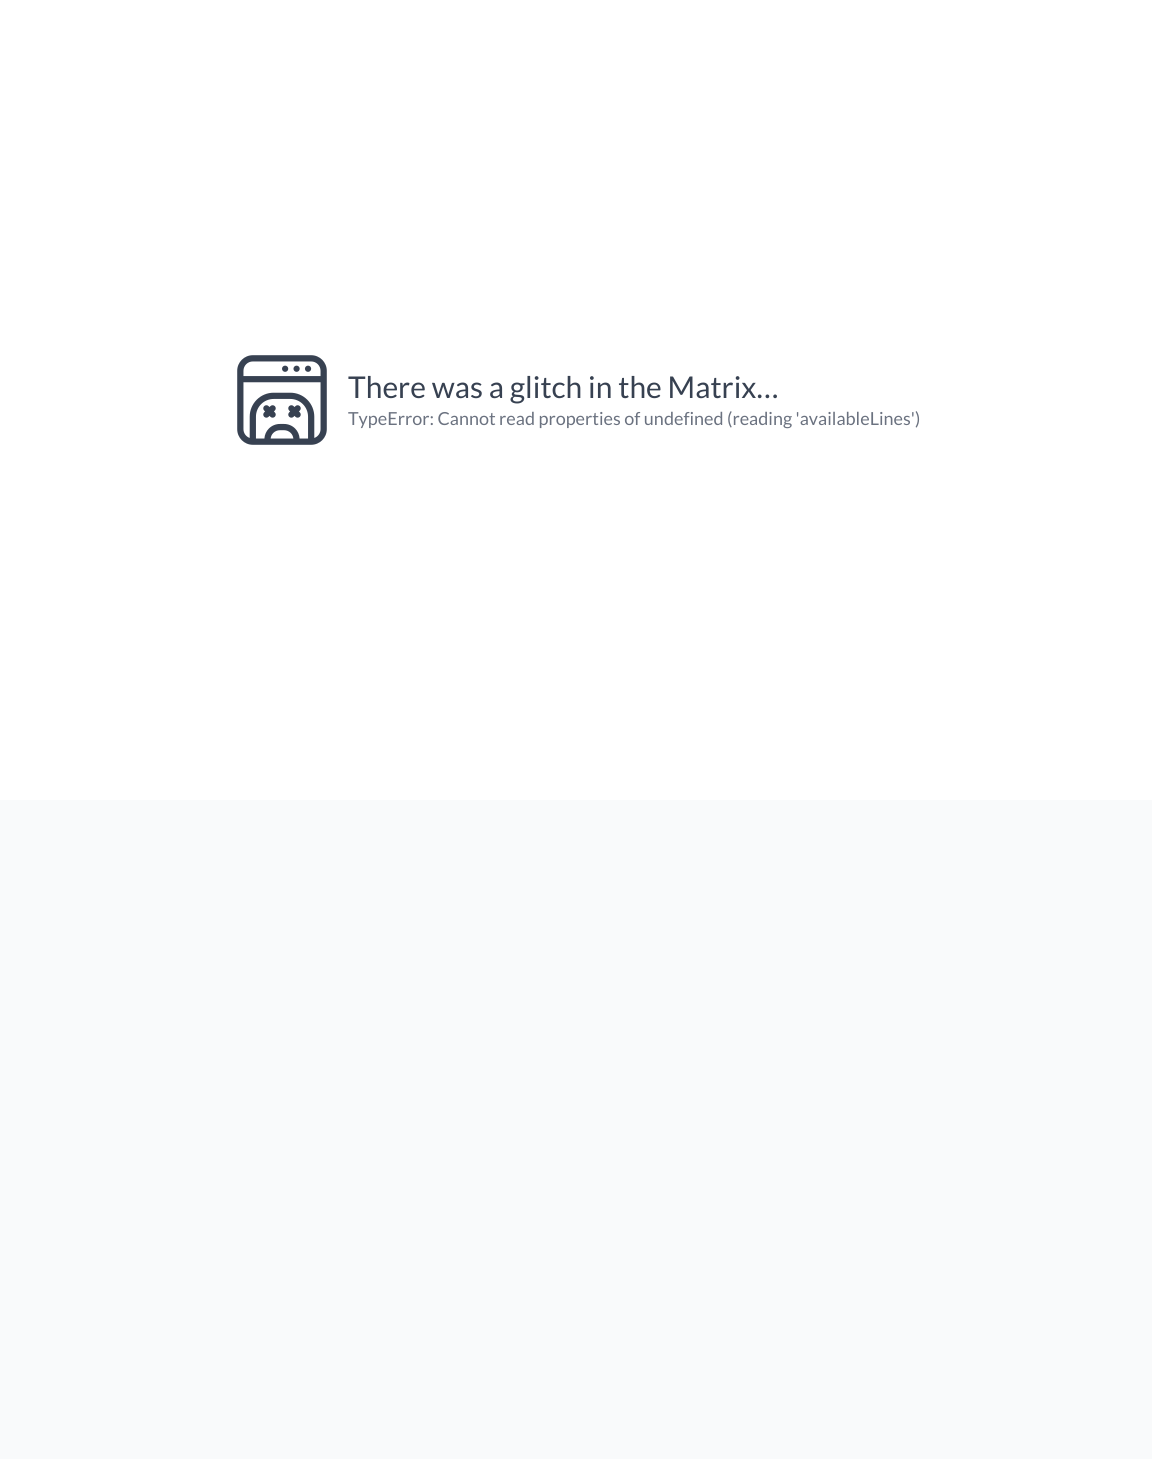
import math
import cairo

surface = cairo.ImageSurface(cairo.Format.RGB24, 1152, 1459)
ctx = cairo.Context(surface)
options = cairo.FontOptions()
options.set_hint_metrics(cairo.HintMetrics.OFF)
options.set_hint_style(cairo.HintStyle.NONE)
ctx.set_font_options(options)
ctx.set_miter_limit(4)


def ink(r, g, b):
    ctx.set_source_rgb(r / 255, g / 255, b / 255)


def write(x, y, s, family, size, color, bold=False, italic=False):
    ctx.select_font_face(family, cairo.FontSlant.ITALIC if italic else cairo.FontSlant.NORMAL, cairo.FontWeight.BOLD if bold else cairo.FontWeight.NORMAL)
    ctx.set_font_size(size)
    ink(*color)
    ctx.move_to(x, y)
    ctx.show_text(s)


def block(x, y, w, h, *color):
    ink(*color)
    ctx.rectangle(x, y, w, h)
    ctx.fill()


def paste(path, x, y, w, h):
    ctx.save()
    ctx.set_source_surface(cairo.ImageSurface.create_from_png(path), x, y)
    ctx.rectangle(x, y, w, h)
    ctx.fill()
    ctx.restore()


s1 = dict(family="Lato", size=30, color=(55, 65, 81))
s2 = dict(family="Lato", size=18, color=(107, 114, 128))

ink(249, 250, 251)
ctx.paint()
block(0, 0, 1152, 800, 255, 255, 255)
paste("pic1.png", 237, 355, 90, 90)
write(348, 398, "There was a glitch in the Matrix…", **s1)
write(348, 425, "TypeError: Cannot read properties of undefined (reading 'availableLines')", **s2)
surface.write_to_png("screenshot.png")
